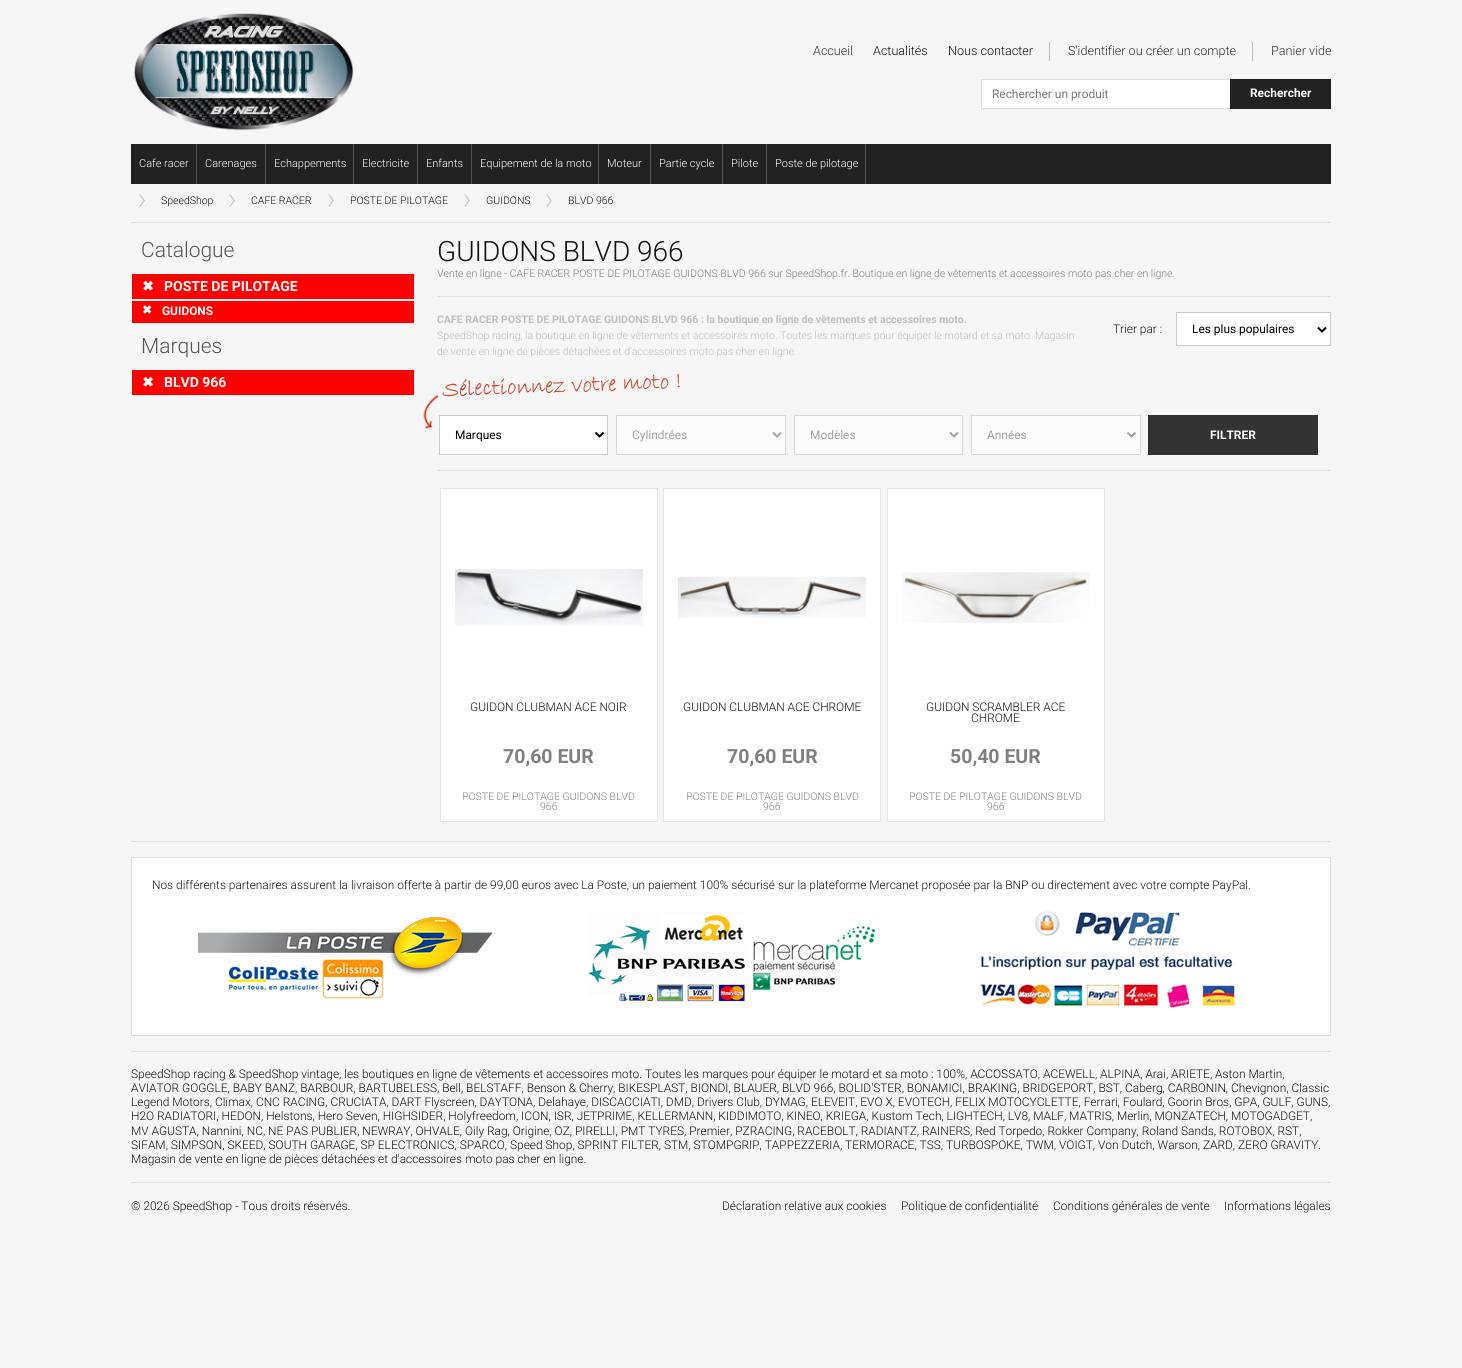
import math
import cairo

surface = cairo.ImageSurface(cairo.Format.RGB24, 1462, 1368)
ctx = cairo.Context(surface)
options = cairo.FontOptions()
options.set_hint_metrics(cairo.HintMetrics.OFF)
options.set_hint_style(cairo.HintStyle.NONE)
ctx.set_font_options(options)
ctx.set_miter_limit(4)


def ink(r, g, b):
    ctx.set_source_rgb(r / 255, g / 255, b / 255)


def write(x, y, s, family, size, color, bold=False, italic=False):
    ctx.select_font_face(family, cairo.FontSlant.ITALIC if italic else cairo.FontSlant.NORMAL, cairo.FontWeight.BOLD if bold else cairo.FontWeight.NORMAL)
    ctx.set_font_size(size)
    ink(*color)
    ctx.move_to(x, y)
    ctx.show_text(s)


def block(x, y, w, h, *color):
    ink(*color)
    ctx.rectangle(x, y, w, h)
    ctx.fill()


def paste(path, x, y, w, h):
    ctx.save()
    ctx.set_source_surface(cairo.ImageSurface.create_from_png(path), x, y)
    ctx.rectangle(x, y, w, h)
    ctx.fill()
    ctx.restore()


s1 = dict(family="Roboto Light", size=12.6, color=(51, 51, 51))
s2 = dict(family="Roboto Light", size=12.6, color=(17, 17, 17))
s3 = dict(family="Roboto", size=11.9, color=(119, 119, 119))
s4 = dict(family="Roboto", size=11.9, color=(255, 255, 255), bold=True)
s5 = dict(family="Roboto Light", size=11, color=(255, 255, 255))
s6 = dict(family="Roboto Light", size=10.5, color=(17, 17, 17))
s7 = dict(family="Roboto Light", size=21, color=(85, 85, 85))
s8 = dict(family="DejaVu Sans", size=14, color=(255, 255, 255), bold=True)
s9 = dict(family="Roboto", size=14, color=(255, 255, 255), bold=True)
s10 = dict(family="DejaVu Sans", size=11.9, color=(255, 255, 255), bold=True)
s11 = dict(family="Roboto Light", size=28, color=(17, 17, 17))
s12 = dict(family="Roboto Light", size=10.5, color=(128, 128, 128))
s13 = dict(family="Roboto", size=10.5, color=(192, 192, 192), bold=True)
s14 = dict(family="Roboto Light", size=10.5, color=(192, 192, 192))
s15 = dict(family="Roboto Light", size=11.9, color=(17, 17, 17))
s16 = dict(family="Roboto", size=11.9, color=(0, 0, 0))
s17 = dict(family="Roboto", size=11.9, color=(163, 163, 163))
s18 = dict(family="Roboto", size=19.5, color=(128, 128, 128), bold=True)

ink(246, 246, 246)
ctx.paint()
paste("pic1.png", 134, 13, 220, 118)
write(813, 55, "Accueil", **s1)
write(873, 55, "Actualités", **s2)
block(1049, 42, 1, 19, 192, 192, 192)
write(948, 55, "Nous contacter", **s2)
block(1252, 42, 1, 19, 192, 192, 192)
write(1068, 55, "S'identifier ou créer un compte", **s1)
write(1271, 55, "Panier vide", **s1)
block(982, 80, 248, 28, 255, 255, 255)
ctx.rectangle(981.5, 79.5, 349, 29)
ink(222, 222, 222)
ctx.set_line_width(1)
ctx.stroke()
write(992, 98, "Rechercher un produit", **s3)
block(1230, 79, 101, 30, 34, 34, 34)
write(1250, 97, "Rechercher", **s4)
block(131, 144, 1200, 40, 34, 34, 34)
block(196, 144, 1, 40, 85, 85, 85)
write(139, 167, "Cafe racer", **s5)
block(265, 144, 1, 40, 85, 85, 85)
write(205, 167, "Carenages", **s5)
block(353, 144, 1, 40, 85, 85, 85)
write(274, 167, "Echappements", **s5)
block(417, 144, 1, 40, 85, 85, 85)
write(362, 167, "Electricite", **s5)
block(471, 144, 1, 40, 85, 85, 85)
write(426, 167, "Enfants", **s5)
block(598, 144, 1, 40, 85, 85, 85)
write(480, 167, "Equipement de la moto", **s5)
block(650, 144, 1, 40, 85, 85, 85)
write(607, 167, "Moteur", **s5)
block(722, 144, 1, 40, 85, 85, 85)
write(659, 167, "Partie cycle", **s5)
block(766, 144, 1, 40, 85, 85, 85)
write(731, 167, "Pilote", **s5)
block(865, 144, 1, 40, 85, 85, 85)
write(775, 167, "Poste de pilotage", **s5)
paste("pic2.png", 139, 194, 6, 13)
write(161, 204, "SpeedShop", **s6)
paste("pic2.png", 229, 194, 6, 13)
write(251, 204, "CAFE RACER", **s6)
paste("pic2.png", 328, 194, 6, 13)
write(350, 204, "POSTE DE PILOTAGE", **s6)
paste("pic2.png", 464, 194, 6, 13)
write(486, 204, "GUIDONS", **s6)
paste("pic2.png", 546, 194, 6, 13)
write(568, 204, "BLVD 966", **s6)
block(131, 222, 1200, 1, 225, 225, 225)
write(141, 257, "Catalogue", **s7)
block(132, 274, 282, 25, 255, 0, 0)
ctx.save()
ctx.translate(142, 291)
ctx.rotate(0.1 * math.pi / 180)
write(0, 0, "✖", **s8)
ctx.restore()
write(164, 291, "POSTE DE PILOTAGE", **s9)
block(132, 301, 282, 22, 255, 0, 0)
ctx.save()
ctx.translate(142, 314)
ctx.rotate(0.1 * math.pi / 180)
write(0, 0, "✖", **s10)
ctx.restore()
write(162, 315, "GUIDONS", **s4)
write(141, 353, "Marques", **s7)
block(132, 370, 282, 25, 255, 0, 0)
ctx.save()
ctx.translate(142, 387)
ctx.rotate(0.1 * math.pi / 180)
write(0, 0, "✖", **s8)
ctx.restore()
write(164, 387, "BLVD 966", **s9)
write(437, 261, "GUIDONS BLVD 966", **s11)
write(437, 277, "Vente en ligne - CAFE RACER POSTE DE PILOTAGE GUIDONS BLVD 966 sur SpeedShop.fr. Boutique en ligne de vêtements et accessoires moto pas cher en ligne.", **s12)
block(437, 296, 894, 1, 225, 225, 225)
write(437, 323, "CAFE RACER POSTE DE PILOTAGE GUIDONS BLVD 966 : la boutique en ligne de vêtements et accessoires moto.", **s13)
write(437, 339, "SpeedShop racing, la boutique en ligne de vêtements et accessoires moto. Toutes les marques pour équiper le motard et sa moto. Magasin", **s14)
write(437, 355, "de vente en ligne de pièces détachées et d'accessoires moto pas cher en ligne.", **s14)
write(1113, 333, "Trier par :", **s15)
ink(255, 255, 255)
ctx.rectangle(1176.5, 312.5, 154, 33)
ctx.fill_preserve()
ink(204, 204, 204)
ctx.stroke()
ctx.new_path()
ctx.move_to(1318, 327.5)
ctx.line_to(1322, 331.5)
ctx.line_to(1326, 327.5)
ink(0, 0, 0)
ctx.set_line_width(2)
ctx.stroke()
write(1192, 333, "Les plus populaires", **s16)
paste("pic3.png", 423, 374, 257, 55)
ink(255, 255, 255)
ctx.rectangle(439.5, 415.5, 168, 39)
ctx.fill_preserve()
ink(204, 204, 204)
ctx.set_line_width(1)
ctx.stroke()
ctx.new_path()
ctx.move_to(595.5, 432.5)
ctx.line_to(599.5, 436.5)
ctx.line_to(603.5, 432.5)
ink(0, 0, 0)
ctx.set_line_width(2)
ctx.stroke()
write(455, 439, "Marques", **s16)
ink(252, 252, 252)
ctx.rectangle(616.5, 415.5, 169, 39)
ctx.fill_preserve()
ink(217, 217, 217)
ctx.set_line_width(1)
ctx.stroke()
ctx.new_path()
ctx.move_to(773, 432.5)
ctx.line_to(777, 436.5)
ctx.line_to(781, 432.5)
ink(163, 163, 163)
ctx.set_line_width(2)
ctx.stroke()
write(632, 439, "Cylindrées", **s17)
ink(252, 252, 252)
ctx.rectangle(794.5, 415.5, 168, 39)
ctx.fill_preserve()
ink(217, 217, 217)
ctx.set_line_width(1)
ctx.stroke()
ctx.new_path()
ctx.move_to(950, 432.5)
ctx.line_to(954, 436.5)
ctx.line_to(958, 432.5)
ink(163, 163, 163)
ctx.set_line_width(2)
ctx.stroke()
write(810, 439, "Modèles", **s17)
ink(252, 252, 252)
ctx.rectangle(971.5, 415.5, 169, 39)
ctx.fill_preserve()
ink(217, 217, 217)
ctx.set_line_width(1)
ctx.stroke()
ctx.new_path()
ctx.move_to(1127.5, 432.5)
ctx.line_to(1131.5, 436.5)
ctx.line_to(1135.5, 432.5)
ink(163, 163, 163)
ctx.set_line_width(2)
ctx.stroke()
write(987, 439, "Années", **s17)
block(1148, 415, 170, 40, 51, 51, 51)
write(1210, 439, "FILTRER", **s4)
block(437, 470, 894, 1, 225, 225, 225)
ink(255, 255, 255)
ctx.rectangle(440.5, 488.5, 217, 333)
ctx.fill_preserve()
ink(230, 230, 230)
ctx.set_line_width(1)
ctx.stroke()
paste("pic4.png", 455, 569, 188, 57)
write(470, 711, "GUIDON CLUBMAN ACE NOIR", **s15)
write(503, 763, "70,60 EUR", **s18)
write(462, 800, "POSTE DE PILOTAGE GUIDONS BLVD", **s12)
write(540, 810, "966", **s12)
ink(255, 255, 255)
ctx.rectangle(663.5, 488.5, 217, 333)
ctx.fill_preserve()
ink(230, 230, 230)
ctx.stroke()
paste("pic5.png", 678, 576, 188, 42)
write(683, 711, "GUIDON CLUBMAN ACE CHROME", **s15)
write(727, 763, "70,60 EUR", **s18)
write(686, 800, "POSTE DE PILOTAGE GUIDONS BLVD", **s12)
write(763, 810, "966", **s12)
ink(255, 255, 255)
ctx.rectangle(887.5, 488.5, 217, 333)
ctx.fill_preserve()
ink(230, 230, 230)
ctx.stroke()
paste("pic6.png", 902, 572, 188, 51)
write(926, 711, "GUIDON SCRAMBLER ACE", **s15)
write(971, 722, "CHROME", **s15)
write(950, 763, "50,40 EUR", **s18)
write(909, 800, "POSTE DE PILOTAGE GUIDONS BLVD", **s12)
write(987, 810, "966", **s12)
block(131, 841, 1200, 1, 225, 225, 225)
ink(255, 255, 255)
ctx.rectangle(131.5, 857.5, 1199, 178)
ctx.fill_preserve()
ink(222, 222, 222)
ctx.stroke()
write(152, 889, "Nos différents partenaires assurent la livraison offerte à partir de 99,00 euros avec La Poste, un paiement 100% sécurisé sur la plateforme Mercanet proposée par la BNP ou directement avec votre compte PayPal.", **s15)
paste("pic7.png", 198, 916, 294, 86)
paste("pic8.png", 587, 911, 288, 93)
paste("pic9.png", 956, 908, 300, 100)
block(131, 1051, 1200, 1, 225, 225, 225)
write(131, 1078, "SpeedShop racing & SpeedShop vintage, les boutiques en ligne de vêtements et accessoires moto. Toutes les marques pour équiper le motard et sa moto : 100%, ACCOSSATO, ACEWELL, ALPINA, Arai, ARIETE, Aston Martin,", **s15)
write(131, 1092, "AVIATOR GOGGLE, BABY BANZ, BARBOUR, BARTUBELESS, Bell, BELSTAFF, Benson & Cherry, BIKESPLAST, BIONDI, BLAUER, BLVD 966, BOLID'STER, BONAMICI, BRAKING, BRIDGEPORT, BST, Caberg, CARBONIN, Chevignon, Classic", **s15)
write(131, 1106, "Legend Motors, Climax, CNC RACING, CRUCIATA, DART Flyscreen, DAYTONA, Delahaye, DISCACCIATI, DMD, Drivers Club, DYMAG, ELEVEIT, EVO X, EVOTECH, FELIX MOTOCYCLETTE, Ferrari, Foulard, Goorin Bros, GPA, GULF, GUNS,", **s15)
write(131, 1120, "H2O RADIATORI, HEDON, Helstons, Hero Seven, HIGHSIDER, Holyfreedom, ICON, ISR, JETPRIME, KELLERMANN, KIDDIMOTO, KINEO, KRIEGA, Kustom Tech, LIGHTECH, LV8, MALF, MATRIS, Merlin, MONZATECH, MOTOGADGET,", **s15)
write(131, 1135, "MV AGUSTA, Nannini, NC, NE PAS PUBLIER, NEWRAY, OHVALE, Oily Rag, Origine, OZ, PIRELLI, PMT TYRES, Premier, PZRACING, RACEBOLT, RADIANTZ, RAINERS, Red Torpedo, Rokker Company, Roland Sands, ROTOBOX, RST,", **s15)
write(131, 1149, "SIFAM, SIMPSON, SKEED, SOUTH GARAGE, SP ELECTRONICS, SPARCO, Speed Shop, SPRINT FILTER, STM, STOMPGRIP, TAPPEZZERIA, TERMORACE, TSS, TURBOSPOKE, TWM, VOIGT, Von Dutch, Warson, ZARD, ZERO GRAVITY.", **s15)
write(131, 1163, "Magasin de vente en ligne de pièces détachées et d'accessoires moto pas cher en ligne.", **s15)
block(131, 1182, 1200, 1, 225, 225, 225)
write(131, 1210, "© 2026 SpeedShop - Tous droits réservés.", **s15)
write(722, 1210, "Déclaration relative aux cookies", **s15)
write(901, 1210, "Politique de confidentialité", **s15)
write(1053, 1210, "Conditions générales de vente", **s15)
write(1224, 1210, "Informations légales", **s15)
surface.write_to_png("screenshot.png")
